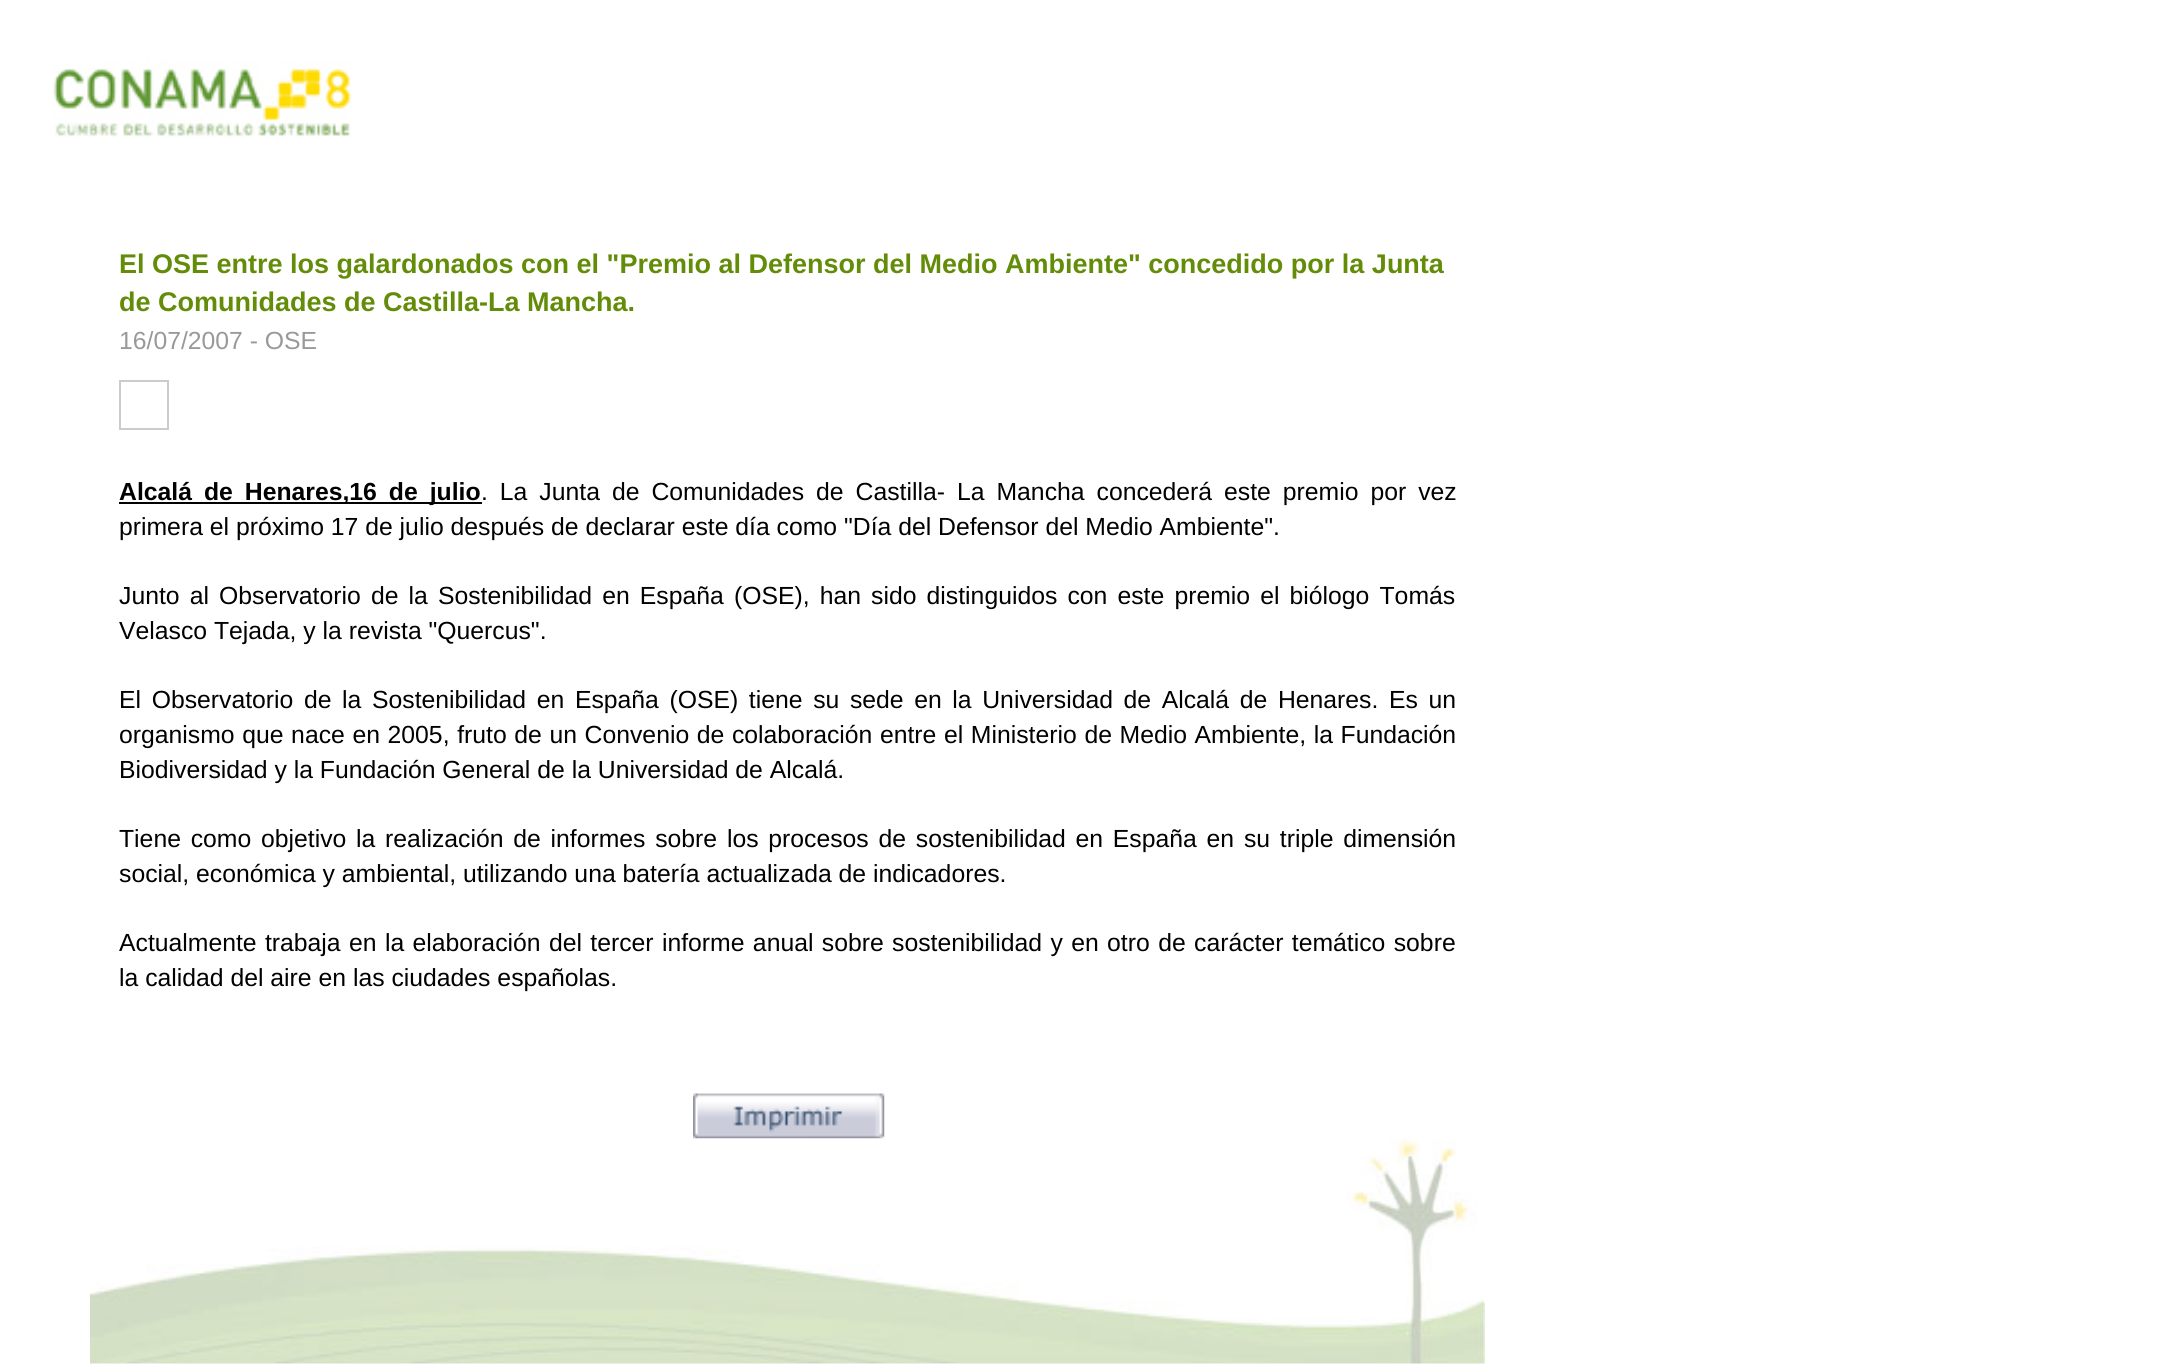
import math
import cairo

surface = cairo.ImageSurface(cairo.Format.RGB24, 2161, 1365)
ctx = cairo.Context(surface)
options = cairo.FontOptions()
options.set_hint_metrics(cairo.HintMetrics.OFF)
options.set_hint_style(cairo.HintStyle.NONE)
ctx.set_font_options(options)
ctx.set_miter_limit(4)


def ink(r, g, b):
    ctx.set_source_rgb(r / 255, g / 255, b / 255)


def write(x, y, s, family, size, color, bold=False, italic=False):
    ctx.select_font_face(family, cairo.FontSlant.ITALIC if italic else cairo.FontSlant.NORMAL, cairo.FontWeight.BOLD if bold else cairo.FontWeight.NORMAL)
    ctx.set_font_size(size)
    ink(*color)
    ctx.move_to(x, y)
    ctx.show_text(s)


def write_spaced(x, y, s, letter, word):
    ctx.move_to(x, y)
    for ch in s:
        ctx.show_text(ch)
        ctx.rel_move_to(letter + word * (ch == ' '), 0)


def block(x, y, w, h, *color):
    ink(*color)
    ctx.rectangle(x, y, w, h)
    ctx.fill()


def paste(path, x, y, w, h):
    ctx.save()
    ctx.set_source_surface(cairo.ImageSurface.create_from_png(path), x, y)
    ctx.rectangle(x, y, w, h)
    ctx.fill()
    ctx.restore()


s1 = dict(family="Liberation Sans", size=27, color=(99, 140, 8), bold=True)
s2 = dict(family="Liberation Sans", size=24.75, color=(153, 153, 153))
s3 = dict(family="Liberation Sans", size=24.75, color=(0, 0, 0))

ink(255, 255, 255)
ctx.paint()
paste("pic1.png", 53, 59, 299, 79)
write(119, 273, "El OSE entre los galardonados con el \"Premio al Defensor del Medio Ambiente\" concedido por la Junta", **s1)
write(119, 311, "de Comunidades de Castilla-La Mancha.", **s1)
write(119, 349, "16/07/2007 - OSE", **s2)
ctx.rectangle(120, 381, 48, 48)
ink(204, 204, 204)
ctx.stroke()
block(119, 502, 363, 2, 0, 0, 0)
ctx.select_font_face("Liberation Sans", cairo.FontSlant.NORMAL, cairo.FontWeight.BOLD)
write_spaced(119, 500, "Alcalá de Henares,16 de julio", 0, 5.1)
ctx.select_font_face("Liberation Sans")
write_spaced(481, 500, ". La Junta de Comunidades de Castilla- La Mancha concederá este premio por vez", 0, 5.1)
write(119, 535, "primera el próximo 17 de julio después de declarar este día como \"Día del Defensor del Medio Ambiente\".", **s3)
write_spaced(119, 604, "Junto al Observatorio de la Sostenibilidad en España (OSE), han sido distinguidos con este premio el biólogo Tomás", 0, 3.25)
write(119, 639, "Velasco Tejada, y la revista \"Quercus\".", **s3)
write_spaced(119, 708, "El Observatorio de la Sostenibilidad en España (OSE) tiene su sede en la Universidad de Alcalá de Henares. Es un", 0, 3.75)
write_spaced(119, 743, "organismo que nace en 2005, fruto de un Convenio de colaboración entre el Ministerio de Medio Ambiente, la Fundación", 0, 0.75)
write(119, 778, "Biodiversidad y la Fundación General de la Universidad de Alcalá.", **s3)
write_spaced(119, 847, "Tiene como objetivo la realización de informes sobre los procesos de sostenibilidad en España en su triple dimensión", 0, 2.9)
write(119, 882, "social, económica y ambiental, utilizando una batería actualizada de indicadores.", **s3)
write_spaced(119, 951, "Actualmente trabaja en la elaboración del tercer informe anual sobre sostenibilidad y en otro de carácter temático sobre", 0, 1.5)
write(119, 986, "la calidad del aire en las ciudades españolas.", **s3)
paste("pic2.png", 693, 1093, 192, 46)
paste("pic3.png", 90, 1138, 1395, 226)
surface.write_to_png("screenshot.png")
